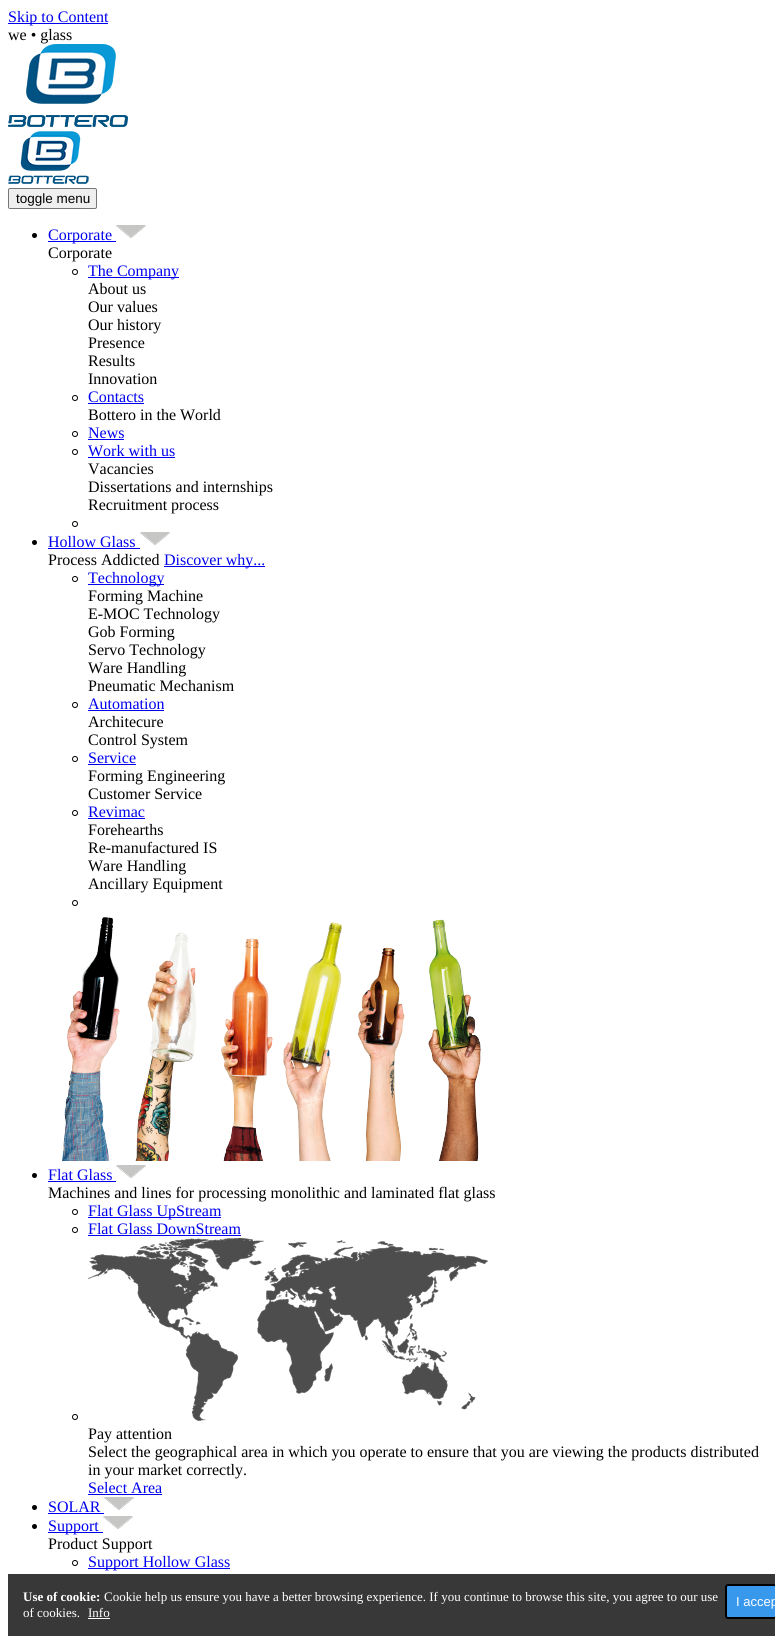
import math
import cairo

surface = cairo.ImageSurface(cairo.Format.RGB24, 775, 1636)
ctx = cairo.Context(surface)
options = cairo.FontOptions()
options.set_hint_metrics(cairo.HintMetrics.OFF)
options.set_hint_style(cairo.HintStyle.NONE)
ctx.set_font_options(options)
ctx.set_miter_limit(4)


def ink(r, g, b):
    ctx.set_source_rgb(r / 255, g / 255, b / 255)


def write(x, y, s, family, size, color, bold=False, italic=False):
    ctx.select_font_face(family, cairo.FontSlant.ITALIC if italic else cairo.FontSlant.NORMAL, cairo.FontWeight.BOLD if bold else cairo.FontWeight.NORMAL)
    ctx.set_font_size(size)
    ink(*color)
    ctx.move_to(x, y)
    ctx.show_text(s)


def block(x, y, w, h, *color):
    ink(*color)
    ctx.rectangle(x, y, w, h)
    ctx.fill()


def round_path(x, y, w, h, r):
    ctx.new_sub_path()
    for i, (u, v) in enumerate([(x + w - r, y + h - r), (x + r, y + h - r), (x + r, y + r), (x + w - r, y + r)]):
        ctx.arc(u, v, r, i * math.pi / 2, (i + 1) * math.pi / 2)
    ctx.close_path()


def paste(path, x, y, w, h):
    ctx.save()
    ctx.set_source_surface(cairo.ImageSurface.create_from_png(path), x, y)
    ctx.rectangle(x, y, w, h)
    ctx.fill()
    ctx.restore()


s1 = dict(family="Liberation Serif", size=16, color=(0, 0, 238))
s2 = dict(family="Liberation Serif", size=16, color=(0, 0, 0))
s3 = dict(family="Liberation Sans", size=13.5, color=(0, 0, 0))
s4 = dict(family="Liberation Serif", size=13, color=(255, 255, 255), bold=True)
s5 = dict(family="Liberation Serif", size=13, color=(255, 255, 255))
s6 = dict(family="Liberation Sans", size=13, color=(255, 255, 255))

ink(255, 255, 255)
ctx.paint()
block(8, 23, 100, 1, 0, 0, 238)
write(8, 22, "Skip to Content", **s1)
write(8, 40, "we • glass", **s2)
paste("pic1.png", 26, 44, 90, 60)
paste("pic2.png", 8, 115, 120, 12)
paste("pic3.png", 8, 131, 81, 53)
ink(239, 239, 239)
round_path(8.5, 188.5, 88, 20, 1.5)
ctx.fill_preserve()
ink(118, 118, 118)
ctx.set_line_width(1)
ctx.stroke()
write(16, 203, "toggle menu", **s3)
ctx.new_path()
ctx.arc(34.5, 235.5, 2.5, 0, 2 * math.pi)
ctx.fill()
block(48, 241, 68, 1, 0, 0, 238)
write(48, 240, "Corporate", **s1)
paste("pic4.png", 116, 225, 30, 13)
write(48, 258, "Corporate", **s2)
ctx.new_path()
ctx.arc(75, 272, 2.5, 0, 2 * math.pi)
ctx.stroke()
block(88, 277, 91, 1, 0, 0, 238)
write(88, 276, "The Company", **s1)
write(88, 294, "About us", **s2)
write(88, 312, "Our values", **s2)
write(88, 330, "Our history", **s2)
write(88, 348, "Presence", **s2)
write(88, 366, "Results", **s2)
write(88, 384, "Innovation", **s2)
ctx.new_path()
ctx.arc(75, 398, 2.5, 0, 2 * math.pi)
ctx.stroke()
write(88, 402, "Contacts", **s1)
block(88, 403, 56, 1, 0, 0, 238)
write(88, 420, "Bottero in the World", **s2)
ctx.new_path()
ctx.arc(75, 434, 2.5, 0, 2 * math.pi)
ctx.stroke()
write(88, 438, "News", **s1)
block(88, 439, 36, 1, 0, 0, 238)
ctx.new_path()
ctx.arc(75, 452, 2.5, 0, 2 * math.pi)
ink(0, 0, 0)
ctx.stroke()
write(88, 456, "Work with us", **s1)
block(88, 457, 87, 1, 0, 0, 238)
write(88, 474, "Vacancies", **s2)
write(88, 492, "Dissertations and internships", **s2)
write(88, 510, "Recruitment process", **s2)
ctx.new_path()
ctx.arc(75, 524, 2.5, 0, 2 * math.pi)
ctx.stroke()
ctx.arc(34.5, 542.5, 2.5, 0, 2 * math.pi)
ctx.fill()
write(48, 547, "Hollow Glass", **s1)
block(48, 548, 92, 1, 0, 0, 238)
paste("pic4.png", 140, 532, 30, 13)
write(48, 565, "Process Addicted", **s2)
block(164, 566, 101, 1, 0, 0, 238)
write(164, 565, "Discover why...", **s1)
ctx.new_path()
ctx.arc(75, 579, 2.5, 0, 2 * math.pi)
ink(0, 0, 0)
ctx.stroke()
block(88, 584, 76, 1, 0, 0, 238)
write(88, 583, "Technology", **s1)
write(88, 601, "Forming Machine", **s2)
write(88, 619, "E-MOC Technology", **s2)
write(88, 637, "Gob Forming", **s2)
write(88, 655, "Servo Technology", **s2)
write(88, 673, "Ware Handling", **s2)
write(88, 691, "Pneumatic Mechanism", **s2)
ctx.new_path()
ctx.arc(75, 705, 2.5, 0, 2 * math.pi)
ctx.stroke()
write(88, 709, "Automation", **s1)
block(88, 710, 76, 1, 0, 0, 238)
write(88, 727, "Architecure", **s2)
write(88, 745, "Control System", **s2)
ctx.new_path()
ctx.arc(75, 759, 2.5, 0, 2 * math.pi)
ctx.stroke()
write(88, 763, "Service", **s1)
block(88, 764, 48, 1, 0, 0, 238)
write(88, 781, "Forming Engineering", **s2)
write(88, 799, "Customer Service", **s2)
ctx.new_path()
ctx.arc(75, 813, 2.5, 0, 2 * math.pi)
ctx.stroke()
write(88, 817, "Revimac", **s1)
block(88, 818, 57, 1, 0, 0, 238)
write(88, 835, "Forehearths", **s2)
write(88, 853, "Re-manufactured IS", **s2)
write(88, 871, "Ware Handling", **s2)
write(88, 889, "Ancillary Equipment", **s2)
ctx.new_path()
ctx.arc(75, 903, 2.5, 0, 2 * math.pi)
ctx.stroke()
paste("pic5.png", 62, 917, 419, 244)
ctx.arc(34.5, 1175.5, 2.5, 0, 2 * math.pi)
ctx.fill()
write(48, 1180, "Flat Glass", **s1)
block(48, 1181, 68, 1, 0, 0, 238)
paste("pic4.png", 116, 1165, 30, 13)
write(48, 1198, "Machines and lines for processing monolithic and laminated flat glass", **s2)
ctx.new_path()
ctx.arc(75, 1212, 2.5, 0, 2 * math.pi)
ctx.stroke()
block(88, 1217, 133, 1, 0, 0, 238)
write(88, 1216, "Flat Glass UpStream", **s1)
ctx.new_path()
ctx.arc(75, 1230, 2.5, 0, 2 * math.pi)
ink(0, 0, 0)
ctx.stroke()
write(88, 1234, "Flat Glass DownStream", **s1)
block(88, 1235, 153, 1, 0, 0, 238)
ctx.new_path()
ctx.arc(75, 1417, 2.5, 0, 2 * math.pi)
ink(0, 0, 0)
ctx.stroke()
paste("pic6.png", 88, 1238, 400, 183)
write(88, 1439, "Pay attention", **s2)
write(88, 1457, "Select the geographical area in which you operate to ensure that you are viewing the products distributed", **s2)
write(88, 1475, "in your market correctly.", **s2)
write(88, 1493, "Select Area", **s1)
block(88, 1494, 74, 1, 0, 0, 238)
ink(0, 0, 0)
ctx.new_path()
ctx.arc(34.5, 1507.5, 2.5, 0, 2 * math.pi)
ctx.fill()
write(48, 1512, "SOLAR", **s1)
block(48, 1513, 56, 1, 0, 0, 238)
paste("pic4.png", 104, 1497, 30, 13)
ink(0, 0, 0)
ctx.arc(34.5, 1526.5, 2.5, 0, 2 * math.pi)
ctx.fill()
block(48, 1532, 55, 1, 0, 0, 238)
write(48, 1531, "Support", **s1)
paste("pic4.png", 103, 1516, 30, 13)
write(48, 1549, "Product Support", **s2)
ctx.new_path()
ctx.arc(75, 1563, 2.5, 0, 2 * math.pi)
ctx.stroke()
block(88, 1568, 142, 1, 0, 0, 238)
write(88, 1567, "Support Hollow Glass", **s1)
block(8, 1574, 767, 62, 56, 56, 56)
write(23, 1601, "Use of cookie:", **s4)
write(104, 1601, "Cookie help us ensure you have a better browsing experience. If you continue to browse this site, you agree to our use", **s5)
write(23, 1617, "of cookies.", **s5)
write(88, 1617, "Info", **s5)
block(88, 1618, 22, 1, 255, 255, 255)
ink(56, 152, 236)
round_path(726, 1585, 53, 33, 2)
ctx.fill_preserve()
ink(0, 0, 0)
ctx.set_line_width(2)
ctx.stroke()
write(736, 1606, "I accep", **s6)
surface.write_to_png("screenshot.png")
